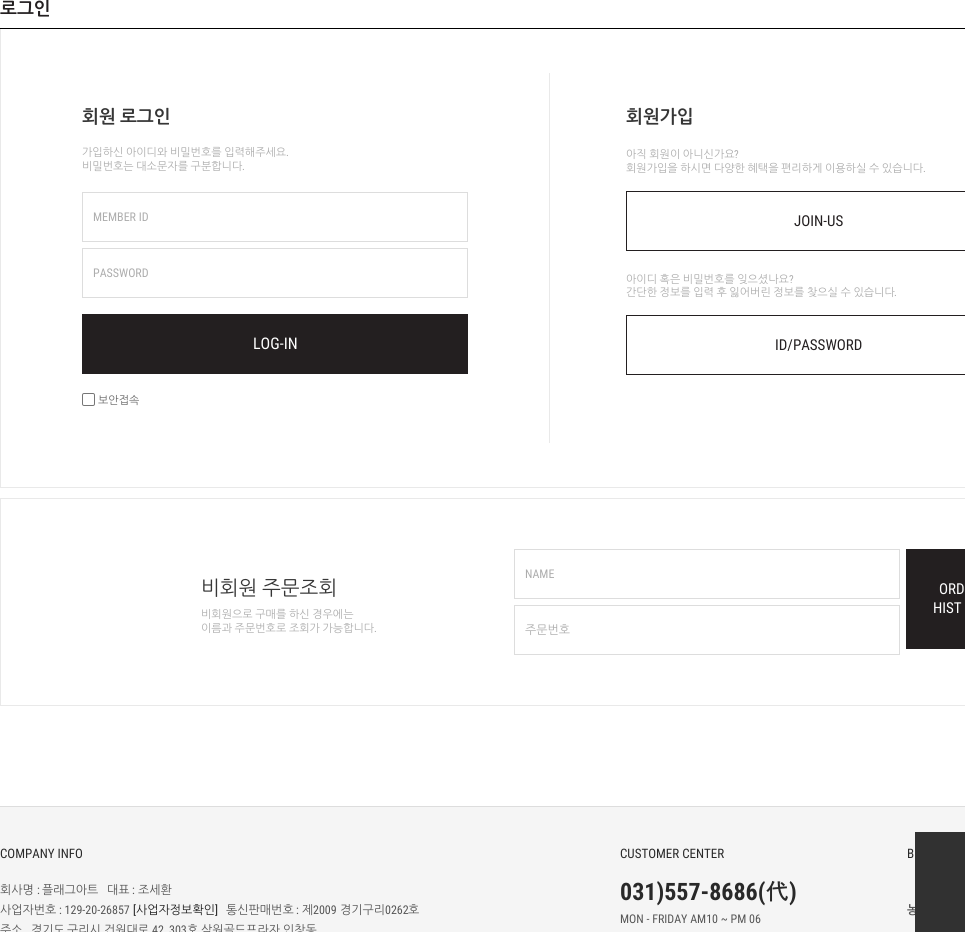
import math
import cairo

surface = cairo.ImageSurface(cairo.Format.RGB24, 965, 932)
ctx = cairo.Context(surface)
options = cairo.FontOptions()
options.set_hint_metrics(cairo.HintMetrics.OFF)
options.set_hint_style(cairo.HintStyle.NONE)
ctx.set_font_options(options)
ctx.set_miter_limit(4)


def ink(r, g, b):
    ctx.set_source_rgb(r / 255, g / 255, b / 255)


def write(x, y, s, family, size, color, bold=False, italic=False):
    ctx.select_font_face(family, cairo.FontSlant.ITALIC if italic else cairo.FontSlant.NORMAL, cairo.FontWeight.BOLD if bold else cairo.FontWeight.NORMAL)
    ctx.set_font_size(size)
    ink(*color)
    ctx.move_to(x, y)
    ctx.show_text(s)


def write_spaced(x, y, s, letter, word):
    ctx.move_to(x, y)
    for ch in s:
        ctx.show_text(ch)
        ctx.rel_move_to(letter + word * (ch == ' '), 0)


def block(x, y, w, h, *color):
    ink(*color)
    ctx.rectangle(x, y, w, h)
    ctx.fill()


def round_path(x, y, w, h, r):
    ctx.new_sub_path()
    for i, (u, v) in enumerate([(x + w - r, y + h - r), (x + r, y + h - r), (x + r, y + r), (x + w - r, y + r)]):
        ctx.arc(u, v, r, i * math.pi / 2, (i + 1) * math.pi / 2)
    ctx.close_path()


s1 = dict(family="NanumGothic", size=18, color=(35, 31, 32), bold=True)
s2 = dict(family="Roboto Condensed", size=11, color=(173, 173, 173))
s3 = dict(family="Roboto Condensed", size=12, color=(173, 173, 173))
s4 = dict(family="Roboto Condensed", size=16, color=(255, 255, 255))
s5 = dict(family="NanumGothic", size=11, color=(102, 102, 102))
s6 = dict(family="NanumGothic", size=18, color=(54, 54, 54), bold=True)
s7 = dict(family="Roboto Condensed", size=15, color=(35, 31, 32))
s8 = dict(family="NanumGothic", size=12, color=(173, 173, 173))
s9 = dict(family="Roboto Condensed", size=15, color=(255, 255, 255))
s10 = dict(family="Roboto Condensed", size=13, color=(41, 41, 41))
s11 = dict(family="NanumGothic", size=12, color=(85, 85, 85))
s12 = dict(family="Roboto Condensed", size=12, color=(85, 85, 85))
s13 = dict(family="Roboto Condensed", size=12, color=(28, 28, 28))
s14 = dict(family="NanumGothic", size=12, color=(28, 28, 28))
s15 = dict(family="Roboto Condensed", size=24, color=(41, 41, 41), bold=True)
s16 = dict(family="Dotum", size=24, color=(41, 41, 41), bold=True)
s17 = dict(family="NanumGothic", size=12, color=(85, 85, 85), bold=True)

ink(255, 255, 255)
ctx.paint()
block(0, 28, 965, 1, 0, 0, 0)
write(0, 15, "로그인", **s1)
block(0, 487, 965, 1, 233, 233, 233)
block(0, 29, 1, 459, 233, 233, 233)
block(549, 73, 1, 370, 233, 233, 233)
ink(54, 54, 54)
write_spaced(82, 123, "회원 로그인", 0, -1)
ctx.select_font_face("NanumGothic")
ctx.set_font_size(11)
ink(173, 173, 173)
write_spaced(82, 156, "가입하신 아이디와 비밀번호를 입력해주세요", 0, -0.5)
write(286, 156, ".", **s2)
ctx.select_font_face("NanumGothic")
write_spaced(82, 170, "비밀번호는 대소문자를 구분합니다", 0, -0.5)
write(242, 170, ".", **s2)
ctx.rectangle(82.5, 192.5, 385, 49)
ink(221, 221, 221)
ctx.set_line_width(1)
ctx.stroke()
write(93, 221, "MEMBER ID", **s3)
ctx.rectangle(82.5, 248.5, 385, 49)
ink(221, 221, 221)
ctx.stroke()
write(93, 277, "PASSWORD", **s3)
block(82, 314, 386, 60, 35, 31, 32)
write(253, 349, "LOG-IN", **s4)
round_path(82.5, 393.5, 12, 12, 1.5)
ink(118, 118, 118)
ctx.stroke()
write(98, 404, "보안접속", **s5)
write(626, 123, "회원가입", **s6)
ctx.select_font_face("NanumGothic")
ctx.set_font_size(11)
ink(173, 173, 173)
write_spaced(626, 158, "아직 회원이 아니신가요", 0, -0.5)
write(734, 158, "?", **s2)
ctx.select_font_face("NanumGothic")
write_spaced(626, 172, "회원가입을 하시면 다양한 혜택을", 0, -0.5)
write_spaced(781, 172, "편리하게 이용하실 수 있습니다", 0, -0.5)
write(923, 172, ".", **s2)
ctx.rectangle(626.5, 191.5, 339, 59)
ink(35, 31, 32)
ctx.stroke()
write(794, 226, "JOIN-US", **s7)
ctx.select_font_face("NanumGothic")
ctx.set_font_size(11)
ink(173, 173, 173)
write_spaced(626, 283, "아이디 혹은 비밀번호를 잊으셨나요", 0, -0.5)
write(789, 283, "?", **s2)
ctx.select_font_face("NanumGothic")
write_spaced(626, 296, "간단한 정보를 입력 후 잃어버린 정보를 찾으실 수 있습니다", 0, -0.5)
write(894, 296, ".", **s2)
ctx.rectangle(626.5, 315.5, 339, 59)
ink(35, 31, 32)
ctx.stroke()
write(775, 350, "ID/PASSWORD", **s7)
ctx.rectangle(0.5, 498.5, 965, 207)
ink(233, 233, 233)
ctx.stroke()
ctx.select_font_face("NanumGothic")
ctx.set_font_size(20)
ink(54, 54, 54)
write_spaced(201, 595, "비회원 주문조회", 0, -1)
ctx.set_font_size(11)
ink(173, 173, 173)
write_spaced(201, 618, "비회원으로 구매를 하신 경우에는", 0, -0.5)
write_spaced(201, 632, "이름과 주문번호로 조회가 가능합니다", 0, -0.5)
write(374, 632, ".", **s2)
ctx.rectangle(514.5, 549.5, 385, 49)
ink(221, 221, 221)
ctx.stroke()
write(525, 578, "NAME", **s3)
ctx.rectangle(514.5, 605.5, 385, 49)
ink(221, 221, 221)
ctx.stroke()
write(525, 634, "주문번호", **s8)
block(906, 549, 59, 100, 35, 31, 32)
write(939, 594, "ORD", **s9)
write(933, 613, "HIST", **s9)
block(0, 807, 965, 125, 245, 245, 245)
block(0, 806, 965, 1, 221, 221, 221)
write(0, 858, "COMPANY INFO", **s10)
write(0, 894, "회사명", **s11)
write(37, 894, ":", **s12)
write(42, 894, "플래그아트", **s11)
write(107, 894, "대표", **s11)
write(132, 894, ":", **s12)
write(138, 894, "조세환", **s11)
write(0, 914, "사업자번호", **s11)
write(59, 914, ": 129-20-26857", **s12)
write(133, 914, "[", **s13)
write(136, 914, "사업자정보확인", **s14)
write(215, 914, "]", **s13)
write(226, 914, "통신판매번호", **s11)
write(296, 914, ":", **s12)
write(302, 914, "제", **s11)
write(313, 914, "2009", **s12)
write(340, 914, "경기구리", **s11)
write(385, 914, "0262", **s12)
write(408, 914, "호", **s11)
write(0, 934, "주소", **s11)
write(31, 934, "경기도", **s11)
write(67, 934, "구리시", **s11)
write(104, 934, "건원대로", **s11)
write(152, 934, "42, 303", **s12)
write(187, 934, "호", **s11)
write(201, 934, "삼원골드프라자", **s11)
write(283, 934, "인창동", **s11)
write(620, 858, "CUSTOMER CENTER", **s10)
write(620, 900, "031)557-8686(", **s15)
write(765, 900, "代", **s16)
write(789, 900, ")", **s15)
write(620, 923, "MON - FRIDAY AM10 ~ PM 06", **s12)
write(907, 858, "B", **s10)
write(907, 914, "농", **s17)
block(915, 832, 50, 100, 49, 49, 49)
surface.write_to_png("screenshot.png")
